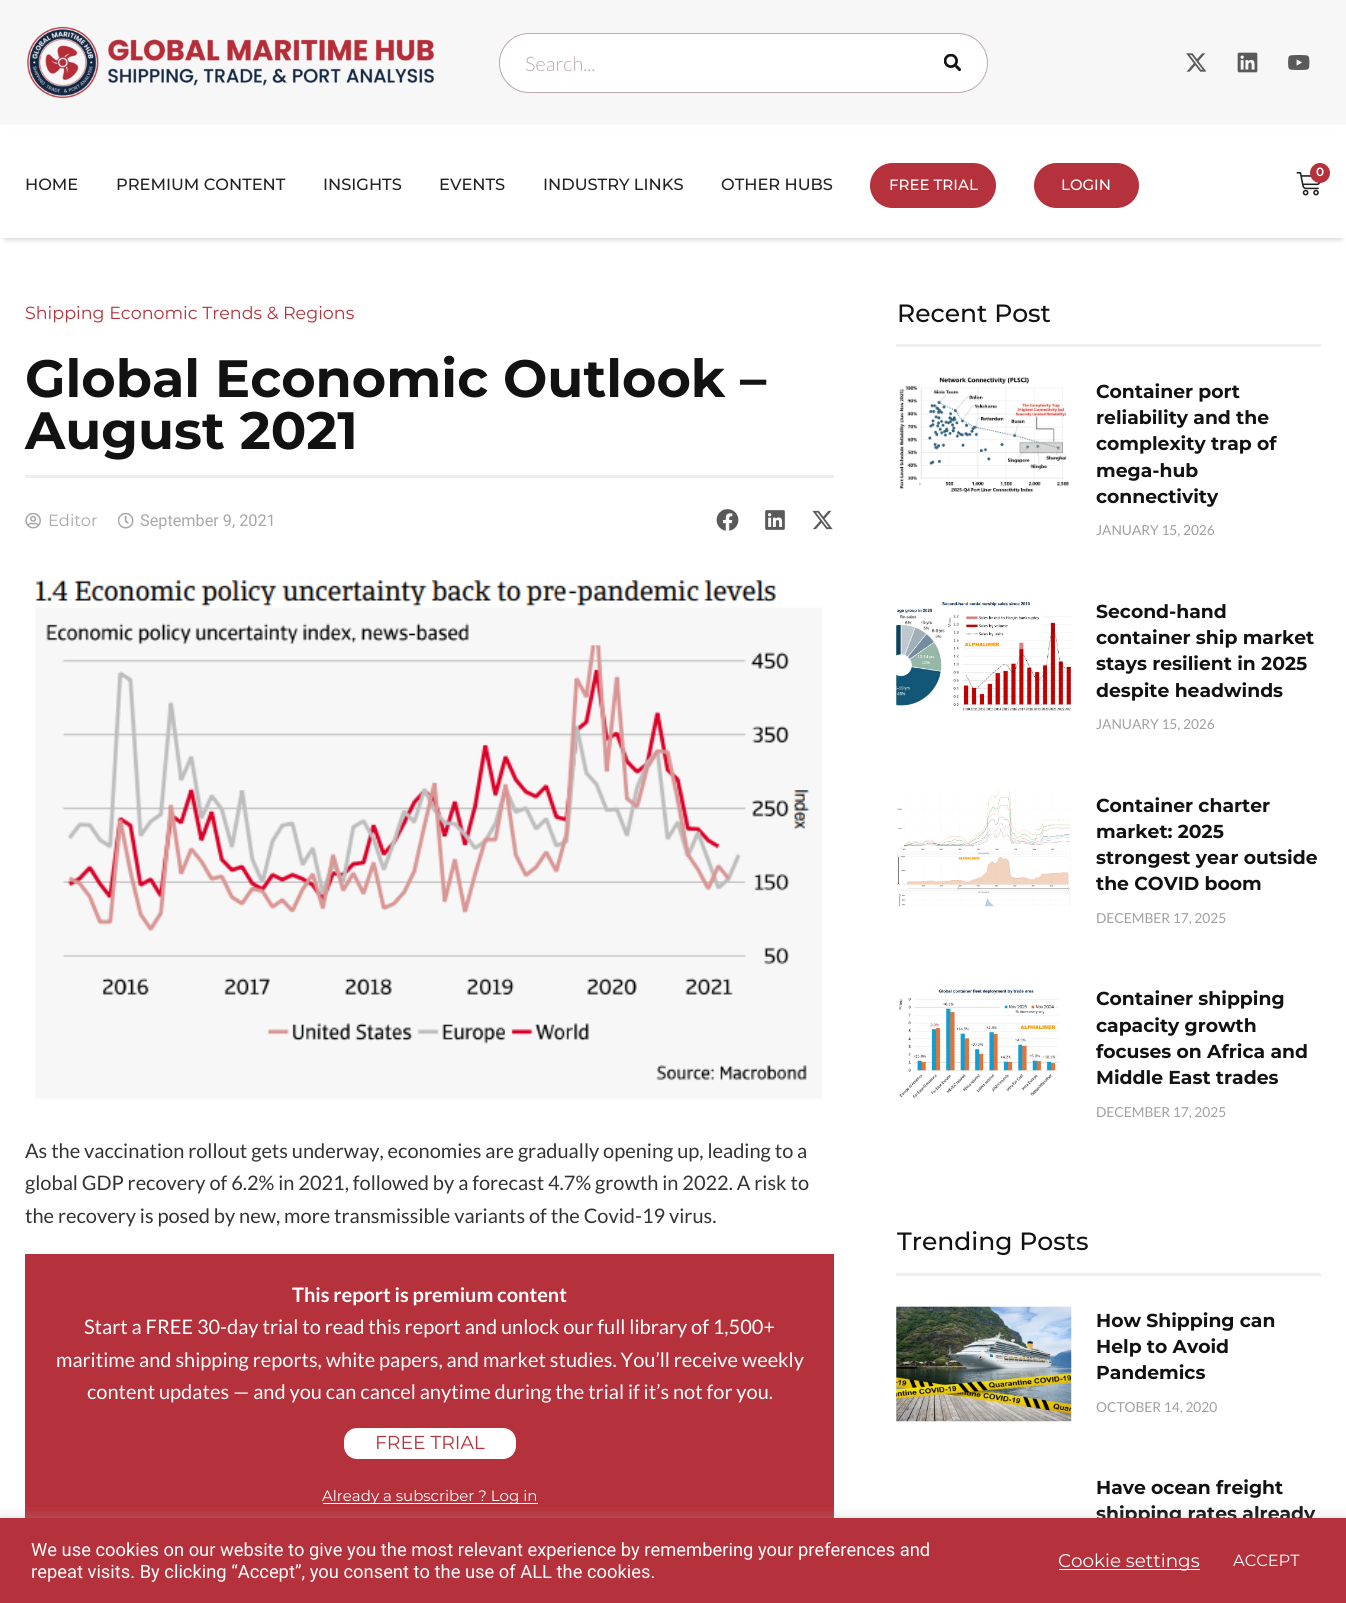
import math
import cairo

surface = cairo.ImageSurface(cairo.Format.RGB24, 1346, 1603)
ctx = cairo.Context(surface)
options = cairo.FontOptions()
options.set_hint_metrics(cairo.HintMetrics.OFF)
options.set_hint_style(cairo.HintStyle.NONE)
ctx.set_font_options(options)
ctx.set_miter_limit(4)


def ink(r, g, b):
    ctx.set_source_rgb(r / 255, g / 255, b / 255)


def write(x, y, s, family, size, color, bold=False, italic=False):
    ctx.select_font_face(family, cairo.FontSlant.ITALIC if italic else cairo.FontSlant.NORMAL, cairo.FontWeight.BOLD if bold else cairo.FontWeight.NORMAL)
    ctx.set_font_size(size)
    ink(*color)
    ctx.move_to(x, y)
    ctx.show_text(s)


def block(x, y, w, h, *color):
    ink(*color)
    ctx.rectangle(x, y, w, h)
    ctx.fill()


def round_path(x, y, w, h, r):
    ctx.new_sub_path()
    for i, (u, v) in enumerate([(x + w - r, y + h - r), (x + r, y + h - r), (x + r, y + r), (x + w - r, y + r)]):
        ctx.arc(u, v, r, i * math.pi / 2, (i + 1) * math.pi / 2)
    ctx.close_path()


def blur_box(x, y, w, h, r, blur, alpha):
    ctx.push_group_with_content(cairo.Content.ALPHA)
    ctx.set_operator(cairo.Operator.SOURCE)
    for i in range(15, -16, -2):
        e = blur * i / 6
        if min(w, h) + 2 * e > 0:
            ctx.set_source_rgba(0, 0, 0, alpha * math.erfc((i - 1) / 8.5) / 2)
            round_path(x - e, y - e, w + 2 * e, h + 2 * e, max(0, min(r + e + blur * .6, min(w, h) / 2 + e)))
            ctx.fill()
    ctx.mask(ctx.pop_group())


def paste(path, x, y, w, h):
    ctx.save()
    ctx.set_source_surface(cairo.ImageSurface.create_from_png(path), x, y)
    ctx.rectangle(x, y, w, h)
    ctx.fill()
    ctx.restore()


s1 = dict(family="Lato Light", size=20, color=(187, 168, 170))
s2 = dict(family="Montserrat SemiBold", size=12, color=(255, 255, 255))
s3 = dict(family="Montserrat Medium", size=16.25, color=(33, 33, 33))
s4 = dict(family="Montserrat Medium", size=15, color=(255, 255, 255))
s5 = dict(family="Montserrat", size=17.5, color=(181, 49, 59))
s6 = dict(family="Montserrat", size=52.5, color=(18, 18, 18), bold=True)
s7 = dict(family="Montserrat", size=16.25, color=(168, 168, 170))
s8 = dict(family="Roboto", size=16.25, color=(168, 168, 170))
s9 = dict(family="Lato", size=20, color=(51, 51, 51))
s10 = dict(family="Lato", size=20, color=(255, 255, 255), bold=True)
s11 = dict(family="Lato", size=20, color=(255, 255, 255))
s12 = dict(family="Montserrat", size=18.75, color=(181, 49, 59))
s13 = dict(family="Montserrat", size=15, color=(255, 255, 255))
s14 = dict(family="Montserrat Medium", size=25, color=(18, 18, 18))
s15 = dict(family="Montserrat", size=18.75, color=(18, 18, 18), bold=True)
s16 = dict(family="Lato", size=13.75, color=(160, 160, 160))
s17 = dict(family="Roboto", size=18.35, color=(255, 255, 255))
s18 = dict(family="Montserrat", size=18.35, color=(255, 255, 255))
s19 = dict(family="Montserrat", size=16.25, color=(255, 255, 255))

ink(255, 255, 255)
ctx.paint()
block(0, 0, 1346, 125, 247, 247, 247)
paste("pic1.png", 27, 26, 407, 73)
ink(255, 255, 255)
round_path(499.5, 33.5, 488, 59, 29.5)
ctx.fill_preserve()
ink(187, 168, 170)
ctx.set_line_width(1)
ctx.stroke()
write(525, 71, "Search...", **s1)
paste("pic2.png", 944, 54, 17, 17)
paste("pic3.png", 1186, 53, 21, 19)
paste("pic4.png", 1237, 52, 21, 21)
paste("pic5.png", 1288, 55, 22, 15)
ink(0, 0, 0)
blur_box(5, 136, 1336, 103, 0, 3, 0.2)
block(0, 131, 1346, 107, 255, 255, 255)
paste("pic6.png", 1296, 172, 25, 24)
ink(181, 49, 59)
ctx.arc(1320, 173, 10, 0, 2 * math.pi)
ctx.fill()
write(1316, 176, "0", **s2)
write(25, 190, "HOME", **s3)
write(116, 190, "PREMIUM CONTENT", **s3)
write(323, 190, "INSIGHTS", **s3)
write(439, 190, "EVENTS", **s3)
write(543, 190, "INDUSTRY LINKS", **s3)
write(721, 190, "OTHER HUBS", **s3)
ink(181, 49, 59)
round_path(870, 163, 126, 45, 22.5)
ctx.fill()
write(889, 190, "FREE TRIAL", **s4)
ink(181, 49, 59)
round_path(1034, 163, 105, 45, 22.5)
ctx.fill()
write(1061, 190, "LOGIN", **s4)
write(25, 319, "Shipping Economic Trends & Regions", **s5)
write(25, 397, "Global Economic Outlook –", **s6)
write(25, 449, "August 2021", **s6)
block(25, 475, 809, 3, 238, 238, 238)
paste("pic7.png", 25, 513, 16, 16)
write(48, 526, "Editor", **s7)
paste("pic8.png", 118, 513, 16, 16)
write(140, 526, "September 9, 2021", **s8)
paste("pic9.png", 716, 509, 23, 22)
paste("pic10.png", 765, 510, 20, 20)
paste("pic11.png", 812, 510, 21, 20)
paste("pic12.png", 35, 580, 787, 519)
write(25, 1158, "As the vaccination rollout gets underway, economies are gradually opening up, leading to a", **s9)
write(25, 1190, "global GDP recovery of 6.2% in 2021, followed by a forecast 4.7% growth in 2022. A risk to", **s9)
write(25, 1223, "the recovery is posed by new, more transmissible variants of the Covid-19 virus.", **s9)
block(25, 1254, 809, 264, 181, 49, 59)
write(292, 1302, "This report is premium content", **s10)
write(84, 1334, "Start a FREE 30-day trial to read this report and unlock our full library of 1,500+", **s11)
write(56, 1367, "maritime and shipping reports, white papers, and market studies. You’ll receive weekly", **s11)
write(87, 1399, "content updates — and you can cancel anytime during the trial if it’s not for you.", **s11)
round_path(344, 1428, 172, 31, 13)
ctx.fill()
write(375, 1449, "FREE TRIAL", **s12)
block(323, 1503, 215, 1, 255, 255, 255)
write(322, 1501, "Already a subscriber ? Log in", **s13)
write(897, 322, "Recent Post", **s14)
block(896, 344, 425, 3, 238, 238, 238)
paste("pic13.png", 899, 377, 170, 116)
write(1096, 398, "Container port", **s15)
write(1096, 424, "reliability and the", **s15)
write(1096, 450, "complexity trap of", **s15)
write(1096, 477, "mega-hub", **s15)
write(1096, 503, "connectivity", **s15)
write(1096, 535, "JANUARY 15, 2026", **s16)
paste("pic14.png", 896, 601, 176, 110)
write(1096, 618, "Second-hand", **s15)
write(1096, 644, "container ship market", **s15)
write(1096, 670, "stays resilient in 2025", **s15)
write(1096, 697, "despite headwinds", **s15)
write(1096, 729, "JANUARY 15, 2026", **s16)
paste("pic15.png", 897, 791, 174, 116)
write(1096, 812, "Container charter", **s15)
write(1096, 838, "market: 2025", **s15)
write(1096, 864, "strongest year outside", **s15)
write(1096, 890, "the COVID boom", **s15)
write(1096, 923, "DECEMBER 17, 2025", **s16)
paste("pic16.png", 899, 989, 160, 110)
write(1096, 1005, "Container shipping", **s15)
write(1096, 1032, "capacity growth", **s15)
write(1096, 1058, "focuses on Africa and", **s15)
write(1096, 1084, "Middle East trades", **s15)
write(1096, 1117, "DECEMBER 17, 2025", **s16)
write(897, 1250, "Trending Posts", **s14)
block(896, 1273, 425, 3, 238, 238, 238)
paste("pic17.png", 896, 1306, 176, 116)
write(1096, 1327, "How Shipping can", **s15)
write(1096, 1353, "Help to Avoid", **s15)
write(1096, 1379, "Pandemics", **s15)
write(1096, 1412, "OCTOBER 14, 2020", **s16)
write(1096, 1494, "Have ocean freight", **s15)
write(1096, 1520, "shipping rates already", **s15)
ink(172, 171, 171)
blur_box(0, 1516, 1346, 87, 0, 6, 0.3)
block(0, 1518, 1346, 85, 181, 49, 59)
write(31, 1556, "We use cookies on our website to give you the most relevant experience by remembering your preferences and", **s17)
write(31, 1578, "repeat visits. By clicking “Accept”, you consent to the use of ALL the cookies.", **s17)
block(1059, 1569, 141, 1, 255, 255, 255)
write(1058, 1567, "Cookie settings", **s18)
write(1233, 1566, "ACCEPT", **s19)
surface.write_to_png("screenshot.png")
